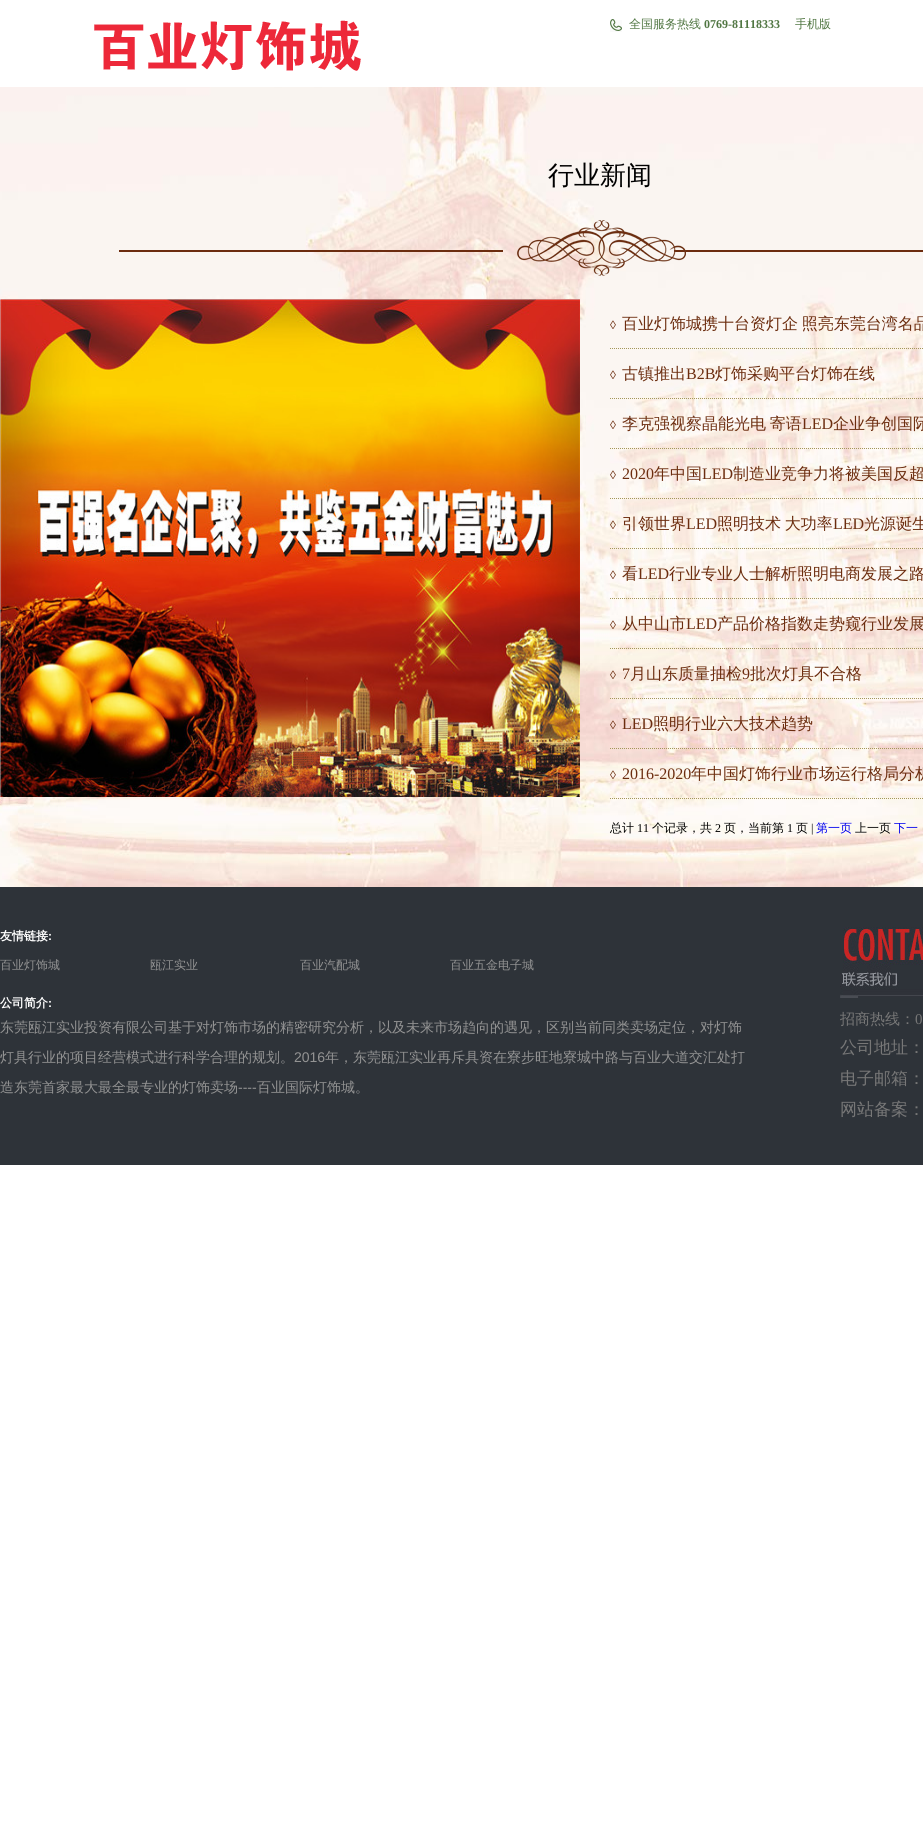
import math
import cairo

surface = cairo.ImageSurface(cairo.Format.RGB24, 923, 1846)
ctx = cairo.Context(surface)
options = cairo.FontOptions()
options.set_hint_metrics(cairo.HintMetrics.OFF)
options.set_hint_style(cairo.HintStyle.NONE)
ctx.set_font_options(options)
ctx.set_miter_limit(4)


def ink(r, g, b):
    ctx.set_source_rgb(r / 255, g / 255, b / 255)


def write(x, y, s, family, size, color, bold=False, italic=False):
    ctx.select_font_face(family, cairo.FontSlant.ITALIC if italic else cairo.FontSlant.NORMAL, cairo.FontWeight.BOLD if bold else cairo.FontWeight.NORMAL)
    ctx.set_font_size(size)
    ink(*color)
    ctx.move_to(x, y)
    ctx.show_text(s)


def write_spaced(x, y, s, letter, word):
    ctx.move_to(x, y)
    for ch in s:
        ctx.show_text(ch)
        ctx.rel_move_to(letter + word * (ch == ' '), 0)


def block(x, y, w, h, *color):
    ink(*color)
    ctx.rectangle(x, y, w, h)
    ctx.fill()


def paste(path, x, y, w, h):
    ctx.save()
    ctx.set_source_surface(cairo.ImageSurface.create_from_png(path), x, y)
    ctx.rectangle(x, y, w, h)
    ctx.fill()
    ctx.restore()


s1 = dict(family="WenQuanYi Zen Hei Medium", size=12, color=(80, 118, 66))
s2 = dict(family="Liberation Serif", size=12, color=(80, 118, 66), bold=True)
s3 = dict(family="WenQuanYi Zen Hei Medium", size=26, color=(0, 0, 0))
s4 = dict(family="Liberation Serif", size=12, color=(108, 45, 15))
s5 = dict(family="WenQuanYi Zen Hei Medium", size=16, color=(108, 45, 15))
s6 = dict(family="Liberation Serif", size=16, color=(108, 45, 15))
s7 = dict(family="WenQuanYi Zen Hei Medium", size=12, color=(0, 0, 0))
s8 = dict(family="Liberation Serif", size=12, color=(0, 0, 0))
s9 = dict(family="WenQuanYi Zen Hei Medium", size=12, color=(0, 0, 238))
s10 = dict(family="WenQuanYi Zen Hei", size=12, color=(255, 255, 255), bold=True)
s11 = dict(family="Liberation Sans", size=12, color=(255, 255, 255), bold=True)
s12 = dict(family="WenQuanYi Zen Hei Medium", size=12, color=(147, 147, 147))
s13 = dict(family="WenQuanYi Zen Hei Medium", size=14, color=(147, 147, 147))
s14 = dict(family="Liberation Sans", size=14, color=(147, 147, 147))
s15 = dict(family="WenQuanYi Zen Hei Medium", size=15, color=(119, 119, 119))
s16 = dict(family="Liberation Serif", size=15, color=(119, 119, 119))
s17 = dict(family="WenQuanYi Zen Hei Medium", size=17, color=(119, 119, 119))

ink(255, 255, 255)
ctx.paint()
paste("pic1.png", 94, 20, 267, 51)
paste("pic2.png", 610, 19, 12, 13)
write(629, 28, "全国服务热线", **s1)
write(704, 28, "0769-81118333", **s2)
write(795, 28, "手机版", **s1)
paste("pic3.png", 0, 87, 923, 800)
write(548, 184, "行业新闻", **s3)
paste("pic4.png", 119, 220, 804, 56)
paste("pic5.png", 0, 299, 580, 498)
ctx.new_path()
ctx.move_to(610, 348.5)
ctx.line_to(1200, 348.5)
ink(164, 151, 89)
ctx.set_line_width(1)
ctx.set_dash([1, 1])
ctx.stroke()
write(610, 329, "◊", **s4)
ctx.select_font_face("WenQuanYi Zen Hei Medium")
ctx.set_font_size(16)
write_spaced(622, 329, "百业灯饰城携十台资灯企 照亮东莞台湾名品", 0, -1)
ctx.new_path()
ctx.move_to(610, 398.5)
ctx.line_to(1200, 398.5)
ink(164, 151, 89)
ctx.stroke()
write(610, 379, "◊", **s4)
write(622, 379, "古镇推出", **s5)
write(686, 379, "B2B", **s6)
write(715, 379, "灯饰采购平台灯饰在线", **s5)
ctx.new_path()
ctx.move_to(610, 448.5)
ctx.line_to(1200, 448.5)
ink(164, 151, 89)
ctx.stroke()
write(610, 429, "◊", **s4)
ctx.select_font_face("WenQuanYi Zen Hei Medium")
ctx.set_font_size(16)
write_spaced(622, 429, "李克强视察晶能光电 寄语", 0, -1)
write(802, 429, "LED", **s6)
write(833, 429, "企业争创国际", **s5)
ctx.new_path()
ctx.move_to(610, 498.5)
ctx.line_to(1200, 498.5)
ink(164, 151, 89)
ctx.stroke()
write(610, 479, "◊", **s4)
write(622, 479, "2020", **s6)
write(654, 479, "年中国", **s5)
write(702, 479, "LED", **s6)
write(733, 479, "制造业竞争力将被美国反超", **s5)
ctx.new_path()
ctx.move_to(610, 548.5)
ctx.line_to(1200, 548.5)
ink(164, 151, 89)
ctx.stroke()
write(610, 529, "◊", **s4)
write(622, 529, "引领世界", **s5)
write(686, 529, "LED", **s6)
ctx.select_font_face("WenQuanYi Zen Hei Medium")
write_spaced(717, 529, "照明技术 大功率", 0, -1)
write(833, 529, "LED", **s6)
write(864, 529, "光源诞生", **s5)
ctx.new_path()
ctx.move_to(610, 598.5)
ctx.line_to(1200, 598.5)
ink(164, 151, 89)
ctx.stroke()
write(610, 579, "◊", **s4)
write(622, 579, "看", **s5)
write(638, 579, "LED", **s6)
write(669, 579, "行业专业人士解析照明电商发展之路", **s5)
ctx.new_path()
ctx.move_to(610, 648.5)
ctx.line_to(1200, 648.5)
ink(164, 151, 89)
ctx.stroke()
write(610, 629, "◊", **s4)
write(622, 629, "从中山市", **s5)
write(686, 629, "LED", **s6)
write(717, 629, "产品价格指数走势窥行业发展", **s5)
ctx.new_path()
ctx.move_to(610, 698.5)
ctx.line_to(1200, 698.5)
ink(164, 151, 89)
ctx.stroke()
write(610, 679, "◊", **s4)
write(622, 679, "7", **s6)
write(630, 679, "月山东质量抽检", **s5)
write(742, 679, "9", **s6)
write(750, 679, "批次灯具不合格", **s5)
ctx.new_path()
ctx.move_to(610, 748.5)
ctx.line_to(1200, 748.5)
ink(164, 151, 89)
ctx.stroke()
write(610, 729, "◊", **s4)
write(622, 729, "LED", **s6)
write(653, 729, "照明行业六大技术趋势", **s5)
ctx.new_path()
ctx.move_to(610, 798.5)
ctx.line_to(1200, 798.5)
ink(164, 151, 89)
ctx.stroke()
write(610, 779, "◊", **s4)
write(622, 779, "2016-2020", **s6)
write(691, 779, "年中国灯饰行业市场运行格局分析", **s5)
write(610, 832, "总计", **s7)
write(637, 832, "11", **s8)
write(652, 832, "个记录，共", **s7)
write(715, 832, "2", **s8)
write(724, 832, "页，当前第", **s7)
write(787, 832, "1", **s8)
write(796, 832, "页", **s7)
write(811, 832, "|", **s8)
write(816, 832, "第一页", **s9)
write(855, 832, "上一页", **s7)
write(894, 832, "下一", **s9)
block(0, 887, 923, 278, 46, 51, 57)
write(0, 940, "友情链接", **s10)
write(48, 940, ":", **s11)
write(0, 969, "百业灯饰城", **s12)
write(150, 969, "瓯江实业", **s12)
write(300, 969, "百业汽配城", **s12)
write(450, 969, "百业五金电子城", **s12)
write(0, 1007, "公司简介", **s10)
write(48, 1007, ":", **s11)
write(0, 1032, "东莞瓯江实业投资有限公司基于对灯饰市场的精密研究分析，以及未来市场趋向的遇见，区别当前同类卖场定位，对灯饰", **s13)
write(0, 1062, "灯具行业的项目经营模式进行科学合理的规划。", **s13)
write(294, 1062, "2016", **s14)
write(325, 1062, "年，东莞瓯江实业再斥具资在寮步旺地寮城中路与百业大道交汇处打", **s13)
write(0, 1092, "造东莞首家最大最全最专业的灯饰卖场", **s13)
write(238, 1092, "----", **s14)
write(257, 1092, "百业国际灯饰城。", **s13)
paste("pic6.png", 840, 927, 83, 71)
write(840, 1024, "招商热线：", **s15)
write(915, 1024, "0", **s16)
write(840, 1053, "公司地址：", **s17)
write(840, 1084, "电子邮箱：", **s17)
write(840, 1115, "网站备案：", **s17)
surface.write_to_png("screenshot.png")
